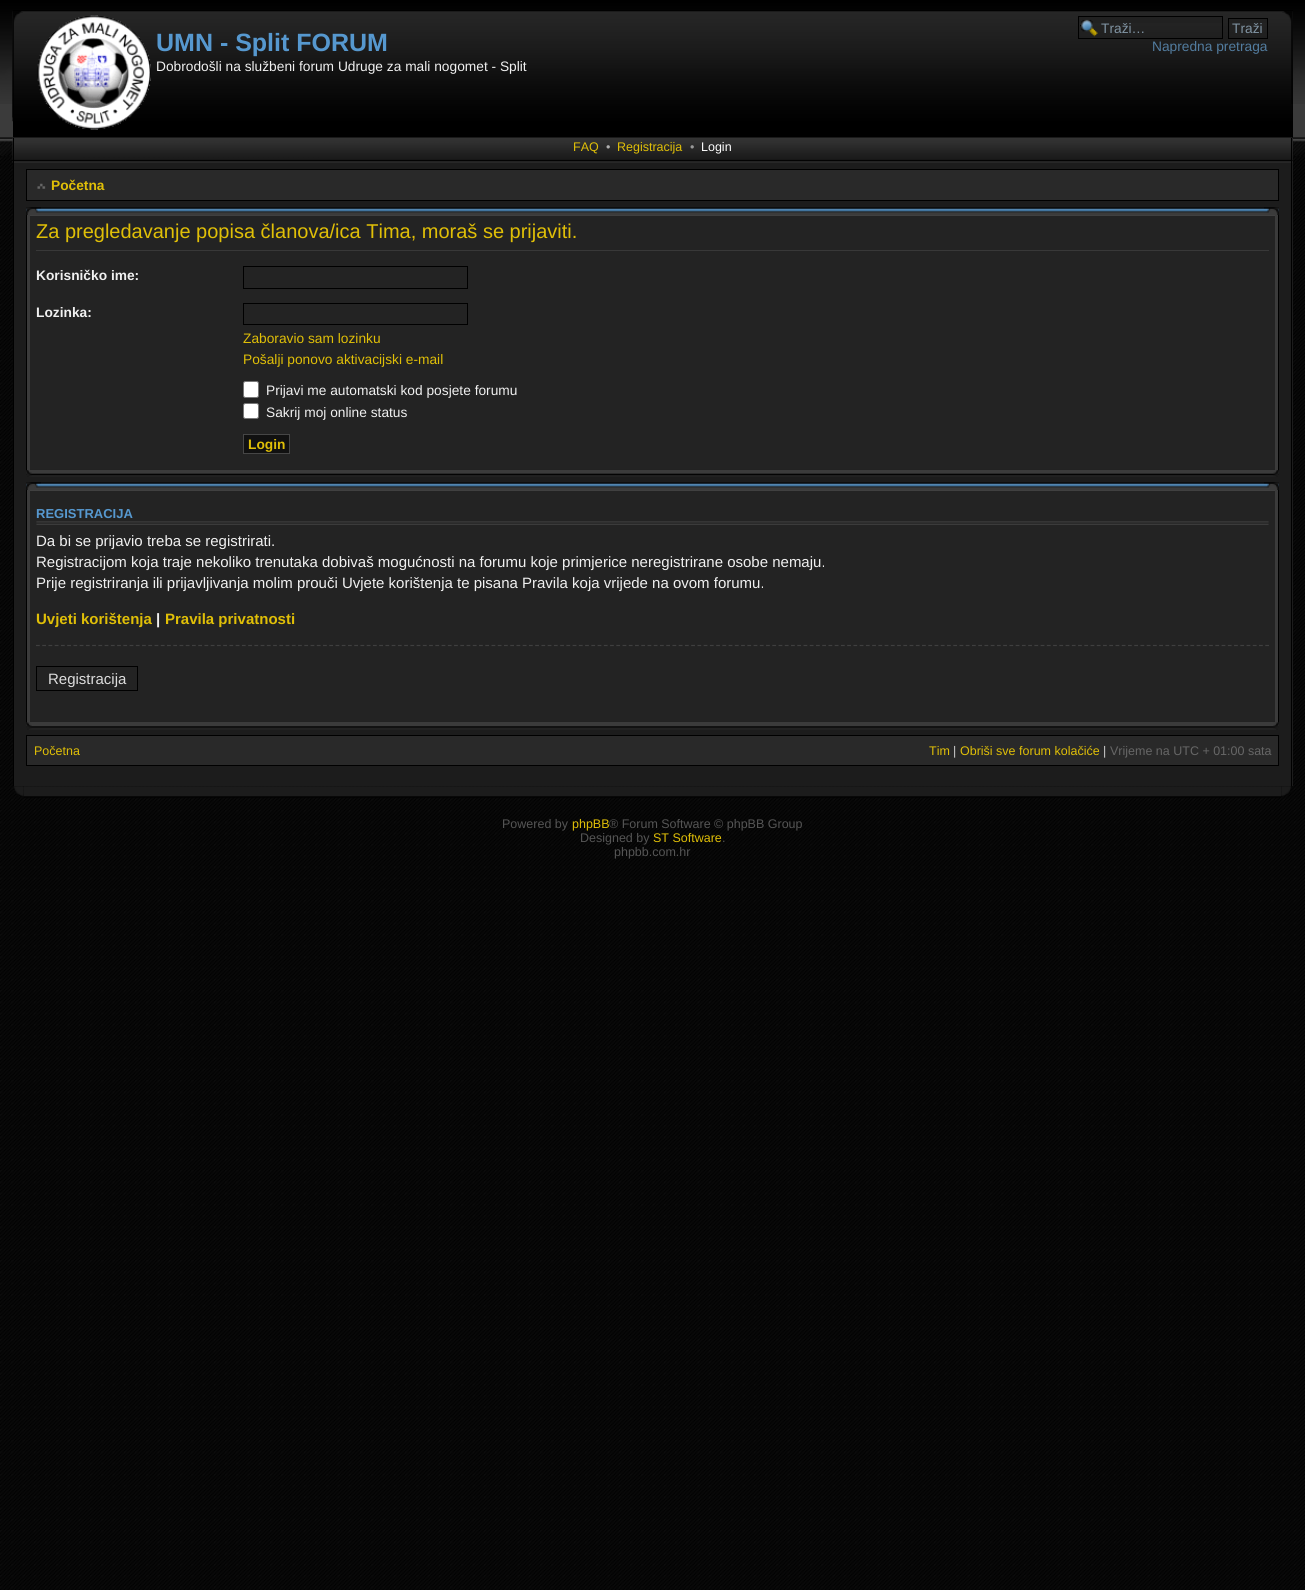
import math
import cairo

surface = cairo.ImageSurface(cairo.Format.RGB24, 1305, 1590)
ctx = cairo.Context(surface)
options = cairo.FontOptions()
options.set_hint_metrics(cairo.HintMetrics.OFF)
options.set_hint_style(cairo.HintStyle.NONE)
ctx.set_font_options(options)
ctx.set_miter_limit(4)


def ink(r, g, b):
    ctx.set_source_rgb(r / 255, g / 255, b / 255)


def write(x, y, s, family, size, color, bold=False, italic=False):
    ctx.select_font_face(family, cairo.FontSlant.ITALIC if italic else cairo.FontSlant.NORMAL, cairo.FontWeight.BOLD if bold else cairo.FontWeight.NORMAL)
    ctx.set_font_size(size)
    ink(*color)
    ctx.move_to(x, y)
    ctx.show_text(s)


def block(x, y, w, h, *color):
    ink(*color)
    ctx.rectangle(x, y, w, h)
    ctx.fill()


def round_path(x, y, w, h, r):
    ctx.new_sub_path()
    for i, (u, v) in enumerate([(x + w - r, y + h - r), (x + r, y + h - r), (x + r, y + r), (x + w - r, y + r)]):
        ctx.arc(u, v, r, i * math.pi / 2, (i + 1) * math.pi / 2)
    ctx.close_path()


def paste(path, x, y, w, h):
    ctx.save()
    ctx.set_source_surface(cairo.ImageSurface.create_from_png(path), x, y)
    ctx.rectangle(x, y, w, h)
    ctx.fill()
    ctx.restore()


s1 = dict(family="Liberation Sans", size=25, color=(86, 152, 207), bold=True)
s2 = dict(family="Liberation Sans", size=13.75, color=(240, 240, 240))
s3 = dict(family="Liberation Sans", size=13.75, color=(128, 147, 162))
s4 = dict(family="Liberation Sans", size=13.75, color=(82, 124, 159))
s5 = dict(family="Liberation Sans", size=12.5, color=(224, 191, 7))
s6 = dict(family="Liberation Sans", size=12.5, color=(176, 176, 176))
s7 = dict(family="Liberation Sans", size=12.5, color=(153, 153, 153))
s8 = dict(family="Liberation Sans", size=12.5, color=(255, 255, 255))
s9 = dict(family="Liberation Sans", size=13.75, color=(224, 191, 7), bold=True)
s10 = dict(family="Liberation Sans", size=20, color=(224, 191, 7))
s11 = dict(family="Liberation Sans", size=13.75, color=(240, 240, 240), bold=True)
s12 = dict(family="Liberation Sans", size=13.75, color=(224, 191, 7))
s13 = dict(family="Liberation Sans", size=13, color=(86, 152, 207), bold=True)
s14 = dict(family="Liberation Sans", size=15, color=(240, 240, 240))
s15 = dict(family="Liberation Sans", size=15, color=(224, 191, 7), bold=True)
s16 = dict(family="Liberation Sans", size=15, color=(240, 240, 240), bold=True)
s17 = dict(family="Liberation Sans", size=15, color=(221, 221, 221))
s18 = dict(family="Liberation Sans", size=12.5, color=(204, 204, 204))
s19 = dict(family="Liberation Sans", size=12.5, color=(102, 102, 102))
s20 = dict(family="Liberation Sans", size=12.5, color=(85, 85, 85))

ink(255, 255, 255)
ctx.paint()
paste("pic1.png", 0, 865, 1305, 725)
paste("pic2.png", 0, 156, 1305, 709)
block(0, 104, 1305, 34, 59, 59, 59)
paste("pic3.png", 0, 0, 1305, 104)
block(13, 10, 1280, 128, 0, 0, 0)
paste("pic4.png", 12, 11, 1281, 111)
paste("pic5.png", 12, 11, 11, 107)
paste("pic6.png", 1282, 11, 11, 93)
paste("pic7.png", 37, 15, 114, 115)
write(156, 51, "UMN - Split FORUM", **s1)
write(156, 71, "Dobrodošli na službeni forum Udruge za mali nogomet - Split", **s2)
block(1079, 17, 143, 6, 33, 33, 33)
paste("pic8.png", 1080, 19, 18, 18)
ctx.rectangle(1078.5, 16.5, 144, 22)
ink(0, 0, 0)
ctx.set_line_width(1)
ctx.stroke()
write(1101, 33, "Traži…", **s3)
block(1229, 19, 38, 4, 33, 33, 33)
ctx.rectangle(1228.5, 18.5, 39, 20)
ink(0, 0, 0)
ctx.stroke()
write(1232, 33, "Traži", **s3)
write(1152, 51, "Napredna pretraga", **s4)
paste("pic9.png", 0, 137, 1305, 19)
block(14, 138, 1279, 648, 28, 28, 28)
paste("pic10.png", 12, 137, 1281, 26)
block(1291, 138, 1, 648, 0, 0, 0)
block(13, 138, 1, 648, 0, 0, 0)
write(573, 151, "FAQ", **s5)
write(606, 151, "•", **s6)
write(617, 151, "Registracija", **s5)
write(690, 151, "•", **s7)
write(701, 151, "Login", **s8)
ink(41, 41, 41)
ctx.rectangle(26.5, 169.5, 1252, 31)
ctx.fill_preserve()
ink(0, 0, 0)
ctx.stroke()
paste("pic11.png", 37, 183, 9, 6)
write(51, 190, "Početna", **s9)
paste("pic12.png", 26, 207, 1253, 8)
paste("pic13.png", 26, 207, 15, 8)
paste("pic14.png", 1264, 207, 15, 8)
block(27, 215, 1251, 255, 59, 59, 59)
block(1278, 215, 1, 255, 0, 0, 0)
block(26, 215, 1, 255, 0, 0, 0)
block(30, 216, 1245, 253, 35, 35, 35)
block(30, 215, 1245, 1, 64, 64, 64)
block(30, 469, 1245, 1, 34, 34, 34)
block(36, 250, 1233, 1, 56, 56, 56)
write(36, 238, "Za pregledavanje popisa članova/ica Tima, moraš se prijaviti.", **s10)
write(36, 280, "Korisničko ime:", **s11)
ctx.rectangle(243.5, 266.5, 224, 22)
ink(0, 0, 0)
ctx.stroke()
write(36, 317, "Lozinka:", **s11)
ctx.rectangle(243.5, 303.5, 224, 21)
ink(0, 0, 0)
ctx.stroke()
write(243, 343, "Zaboravio sam lozinku", **s12)
write(243, 364, "Pošalji ponovo aktivacijski e-mail", **s12)
ink(255, 255, 255)
round_path(243.5, 381.5, 15, 16, 2)
ctx.fill_preserve()
ink(118, 118, 118)
ctx.stroke()
write(266, 395, "Prijavi me automatski kod posjete forumu", **s2)
ink(255, 255, 255)
round_path(243.5, 403.5, 15, 15, 2)
ctx.fill_preserve()
ink(118, 118, 118)
ctx.stroke()
write(266, 417, "Sakrij moj online status", **s2)
ink(17, 17, 17)
ctx.rectangle(243.5, 434.5, 46, 19)
ctx.fill_preserve()
ink(70, 70, 70)
ctx.stroke()
write(248, 449, "Login", **s9)
paste("pic15.png", 26, 470, 1253, 7)
paste("pic16.png", 26, 470, 6, 7)
paste("pic17.png", 1273, 470, 6, 7)
paste("pic18.png", 26, 482, 1253, 8)
paste("pic13.png", 26, 482, 15, 8)
paste("pic14.png", 1264, 482, 15, 8)
block(27, 490, 1251, 233, 59, 59, 59)
block(1278, 490, 1, 233, 0, 0, 0)
block(26, 490, 1, 233, 0, 0, 0)
block(30, 491, 1245, 230, 35, 35, 35)
block(30, 490, 1245, 1, 64, 64, 64)
block(30, 721, 1245, 1, 34, 34, 34)
paste("pic19.png", 36, 521, 1233, 4)
write(36, 518, "REGISTRACIJA", **s13)
write(36, 546, "Da bi se prijavio treba se registrirati.", **s14)
write(36, 567, "Registracijom koja traje nekoliko trenutaka dobivaš mogućnosti na forumu koje primjerice neregistrirane osobe nemaju.", **s14)
write(36, 588, "Prije registriranja ili prijavljivanja molim prouči Uvjete korištenja te pisana Pravila koja vrijede na ovom forumu.", **s14)
write(36, 624, "Uvjeti korištenja", **s15)
write(156, 624, "|", **s16)
write(165, 624, "Pravila privatnosti", **s15)
ctx.new_path()
ctx.move_to(36, 645.5)
ctx.line_to(1269, 645.5)
ink(63, 63, 63)
ctx.set_line_width(1.2)
ctx.set_dash([3.75, 2.49])
ctx.stroke()
ctx.rectangle(36.5, 666.5, 101, 24)
ink(0, 0, 0)
ctx.set_line_width(1)
ctx.set_dash([])
ctx.stroke()
write(48, 684, "Registracija", **s17)
paste("pic20.png", 26, 722, 1253, 8)
paste("pic21.png", 26, 722, 6, 8)
paste("pic22.png", 1273, 722, 6, 8)
ink(41, 41, 41)
ctx.rectangle(26.5, 735.5, 1252, 30)
ctx.fill_preserve()
ink(0, 0, 0)
ctx.stroke()
write(34, 755, "Početna", **s5)
write(929, 755, "Tim", **s5)
write(953, 755, "|", **s18)
write(960, 755, "Obriši sve forum kolačiće", **s5)
write(1103, 755, "|", **s18)
write(1110, 755, "Vrijeme na UTC + 01:00 sata", **s19)
paste("pic23.png", 14, 786, 10, 10)
paste("pic24.png", 1281, 786, 10, 10)
paste("pic25.png", 24, 786, 1257, 12)
write(502, 828, "Powered by", **s20)
write(572, 828, "phpBB", **s5)
write(609, 828, "® Forum Software © phpBB Group", **s20)
write(580, 842, "Designed by", **s20)
write(653, 842, "ST Software", **s5)
write(722, 842, ".", **s20)
write(614, 856, "phpbb.com.hr", **s20)
surface.write_to_png("screenshot.png")
